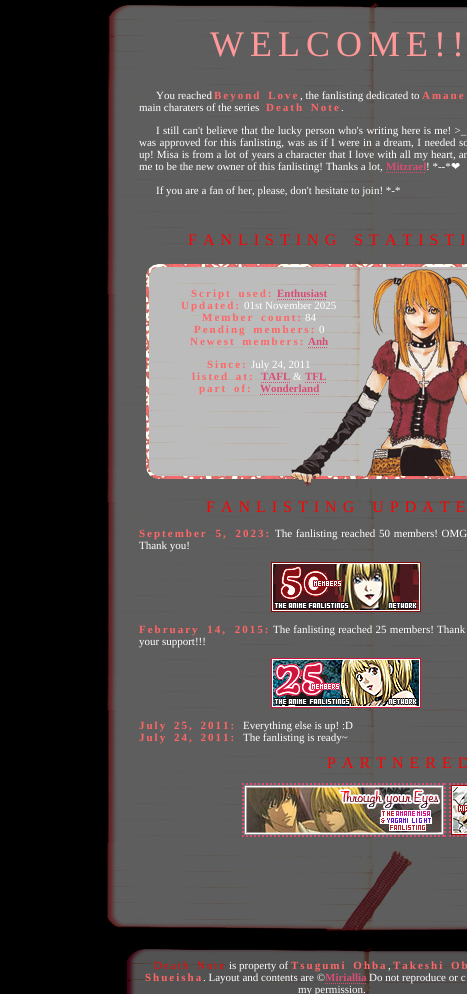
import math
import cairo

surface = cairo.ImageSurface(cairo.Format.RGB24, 467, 994)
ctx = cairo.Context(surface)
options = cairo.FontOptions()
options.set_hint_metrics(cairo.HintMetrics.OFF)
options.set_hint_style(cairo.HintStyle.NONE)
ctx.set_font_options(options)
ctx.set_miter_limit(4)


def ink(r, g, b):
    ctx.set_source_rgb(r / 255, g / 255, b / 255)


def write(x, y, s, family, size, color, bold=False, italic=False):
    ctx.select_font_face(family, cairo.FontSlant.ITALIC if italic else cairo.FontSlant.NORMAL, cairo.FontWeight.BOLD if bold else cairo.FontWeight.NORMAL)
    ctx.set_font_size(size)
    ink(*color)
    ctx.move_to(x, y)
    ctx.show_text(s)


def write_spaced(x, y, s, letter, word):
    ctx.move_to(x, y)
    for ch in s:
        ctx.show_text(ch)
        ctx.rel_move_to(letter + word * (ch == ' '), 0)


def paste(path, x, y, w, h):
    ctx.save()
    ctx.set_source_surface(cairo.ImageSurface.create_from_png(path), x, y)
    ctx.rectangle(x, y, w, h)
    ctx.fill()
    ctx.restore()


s1 = dict(family="Liberation Serif", size=11, color=(255, 255, 255))
s2 = dict(family="Liberation Serif", size=11, color=(215, 77, 115), bold=True)
s3 = dict(family="DejaVu Sans", size=11, color=(255, 255, 255))

ink(0, 0, 0)
ctx.paint()
paste("pic1.png", 113, 5, 81, 6)
paste("pic2.png", 194, 2, 250, 9)
paste("pic3.png", 444, 7, 23, 4)
paste("pic4.png", 105, 11, 362, 74)
ctx.select_font_face("Liberation Serif")
ctx.set_font_size(36)
ink(255, 153, 153)
write_spaced(210, 56, "WELCOME!!", 6, 0)
paste("pic5.png", 108, 85, 359, 1)
paste("pic6.png", 105, 86, 362, 756)
write(156, 99, "You reached", **s1)
ctx.select_font_face("Liberation Serif", cairo.FontSlant.NORMAL, cairo.FontWeight.BOLD)
ink(255, 102, 102)
write_spaced(214, 99, "Beyond Love", 2, 2)
write(300, 99, ", the fanlisting dedicated to", **s1)
ctx.select_font_face("Liberation Serif", cairo.FontSlant.NORMAL, cairo.FontWeight.BOLD)
ink(255, 102, 102)
write_spaced(422, 99, "Amane", 2, 2)
write(139, 111, "main charaters of the series", **s1)
ctx.select_font_face("Liberation Serif", cairo.FontSlant.NORMAL, cairo.FontWeight.BOLD)
ink(255, 102, 102)
write_spaced(266, 111, "Death Note", 2, 2)
write(341, 111, ".", **s1)
write_spaced(156, 134, "I still can't believe that the lucky person who's writing here is me! >_", 0, 0.5)
write_spaced(139, 146, "was approved for this fanlisting, was as if I were in a dream, I needed so", 0, 0.75)
write_spaced(139, 158, "up! Misa is from a lot of years a character that I love with all my heart, an", 0, 0.3)
write(139, 170, "me to be the new owner of this fanlisting! Thanks a lot,", **s1)
write(386, 170, "Mitzrael", **s2)
ctx.new_path()
ctx.move_to(386, 172.5)
ctx.line_to(426, 172.5)
ctx.set_line_width(1)
ctx.set_dash([1, 1])
ctx.stroke()
write(426, 170, "! *--*", **s1)
write(451, 170, "❤", **s3)
write(156, 194, "If you are a fan of her, please, don't hesitate to join! *-*", **s1)
ctx.set_font_size(16)
ink(255, 0, 0)
write_spaced(188, 245, "FANLISTING STATISTI", 6, 2)
paste("pic7.png", 143, 260, 324, 227)
ctx.select_font_face("Liberation Serif", cairo.FontSlant.NORMAL, cairo.FontWeight.BOLD)
ctx.set_font_size(11)
ink(255, 102, 102)
write_spaced(191, 297, "Script used:", 2, 2)
write(277, 297, "Enthusiast", **s2)
ctx.new_path()
ctx.move_to(277, 299.5)
ctx.line_to(327, 299.5)
ctx.stroke()
ink(255, 102, 102)
write_spaced(181, 309, "Updated:", 2, 0)
write(244, 309, "01st November 2025", **s1)
ctx.select_font_face("Liberation Serif", cairo.FontSlant.NORMAL, cairo.FontWeight.BOLD)
ink(255, 102, 102)
write_spaced(202, 321, "Member count:", 2, 2)
write(305, 321, "84", **s1)
ctx.select_font_face("Liberation Serif", cairo.FontSlant.NORMAL, cairo.FontWeight.BOLD)
ink(255, 102, 102)
write_spaced(194, 333, "Pending members:", 2, 2)
write(319, 333, "0", **s1)
ctx.select_font_face("Liberation Serif", cairo.FontSlant.NORMAL, cairo.FontWeight.BOLD)
ink(255, 102, 102)
write_spaced(190, 345, "Newest members:", 2, 2)
write(308, 345, "Anh", **s2)
ctx.new_path()
ctx.move_to(308, 347.5)
ctx.line_to(328, 347.5)
ctx.stroke()
ink(255, 102, 102)
write_spaced(207, 368, "Since:", 2, 0)
write(251, 368, "July 24, 2011", **s1)
ctx.select_font_face("Liberation Serif", cairo.FontSlant.NORMAL, cairo.FontWeight.BOLD)
ink(255, 102, 102)
write_spaced(192, 380, "listed at:", 2, 2)
write(261, 380, "TAFL", **s2)
ctx.new_path()
ctx.move_to(261, 382.5)
ctx.line_to(291, 382.5)
ctx.stroke()
write(293, 380, "&", **s1)
write(305, 380, "TFL", **s2)
ctx.new_path()
ctx.move_to(305, 382.5)
ctx.line_to(326, 382.5)
ctx.stroke()
ink(255, 102, 102)
write_spaced(199, 392, "part of:", 2, 2)
write(260, 392, "Wonderland", **s2)
ctx.new_path()
ctx.move_to(260, 394.5)
ctx.line_to(319, 394.5)
ctx.stroke()
ctx.select_font_face("Liberation Serif")
ctx.set_font_size(16)
ink(255, 0, 0)
write_spaced(206, 512, "FANLISTING UPDATE", 6, 2)
ctx.select_font_face("Liberation Serif", cairo.FontSlant.NORMAL, cairo.FontWeight.BOLD)
ctx.set_font_size(11)
ink(255, 102, 102)
write_spaced(139, 537, "September 5, 2023:", 2, 3)
ctx.select_font_face("Liberation Serif")
ink(255, 255, 255)
write_spaced(275, 537, "The fanlisting reached 50 members! OMG", 0, 1)
write(139, 549, "Thank you!", **s1)
paste("pic8.png", 271, 562, 150, 50)
ctx.select_font_face("Liberation Serif", cairo.FontSlant.NORMAL, cairo.FontWeight.BOLD)
ink(255, 102, 102)
write_spaced(139, 633, "February 14, 2015:", 2, 3)
ctx.select_font_face("Liberation Serif")
ink(255, 255, 255)
write_spaced(273, 633, "The fanlisting reached 25 members! Thank", 0, 0.5)
write(139, 645, "your support!!!", **s1)
paste("pic9.png", 271, 658, 150, 50)
ctx.select_font_face("Liberation Serif", cairo.FontSlant.NORMAL, cairo.FontWeight.BOLD)
ink(255, 102, 102)
write_spaced(139, 729, "July 25, 2011:", 2, 2)
write(243, 729, "Everything else is up! :D", **s1)
ctx.select_font_face("Liberation Serif", cairo.FontSlant.NORMAL, cairo.FontWeight.BOLD)
ink(255, 102, 102)
write_spaced(139, 741, "July 24, 2011:", 2, 2)
write(243, 741, "The fanlisting is ready~", **s1)
ctx.set_font_size(16)
ink(255, 0, 0)
write_spaced(327, 768, "PARTNERED", 6, 2)
ctx.new_path()
ctx.move_to(242, 784)
ctx.line_to(446, 784)
ink(215, 77, 115)
ctx.set_line_width(2)
ctx.set_dash([2, 2])
ctx.stroke()
ctx.new_path()
ctx.move_to(242, 836)
ctx.line_to(446, 836)
ctx.stroke()
ctx.new_path()
ctx.move_to(243, 783)
ctx.line_to(243, 837)
ctx.stroke()
paste("pic10.png", 244, 785, 200, 50)
ctx.new_path()
ctx.move_to(445, 783)
ctx.line_to(445, 837)
ctx.stroke()
ctx.new_path()
ctx.move_to(449, 784)
ctx.line_to(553, 784)
ctx.move_to(449, 836)
ctx.line_to(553, 836)
ctx.move_to(450, 783)
ctx.line_to(450, 837)
ctx.stroke()
paste("pic11.png", 451, 785, 16, 50)
paste("pic12.png", 105, 842, 362, 89)
paste("pic13.png", 126, 947, 341, 47)
ctx.set_font_size(11)
ink(255, 0, 0)
write_spaced(154, 969, "Death Note", 2, 2)
write(229, 969, "is property of", **s1)
ctx.select_font_face("Liberation Serif", cairo.FontSlant.NORMAL, cairo.FontWeight.BOLD)
ink(255, 102, 102)
write_spaced(291, 969, "Tsugumi Ohba", 2, 2)
write(388, 969, ",", **s1)
ctx.select_font_face("Liberation Serif", cairo.FontSlant.NORMAL, cairo.FontWeight.BOLD)
ink(255, 102, 102)
write_spaced(393, 969, "Takeshi Ob", 2, 2)
write_spaced(145, 981, "Shueisha", 2, 0)
write(203, 981, ". Layout and contents are ©", **s1)
write(325, 981, "Miriallia", **s2)
ctx.new_path()
ctx.move_to(325, 983.5)
ctx.line_to(366, 983.5)
ctx.set_line_width(1)
ctx.set_dash([1, 1])
ctx.stroke()
write(369, 981, "Do not reproduce or c", **s1)
write(298, 993, "my permission.", **s1)
surface.write_to_png("screenshot.png")
